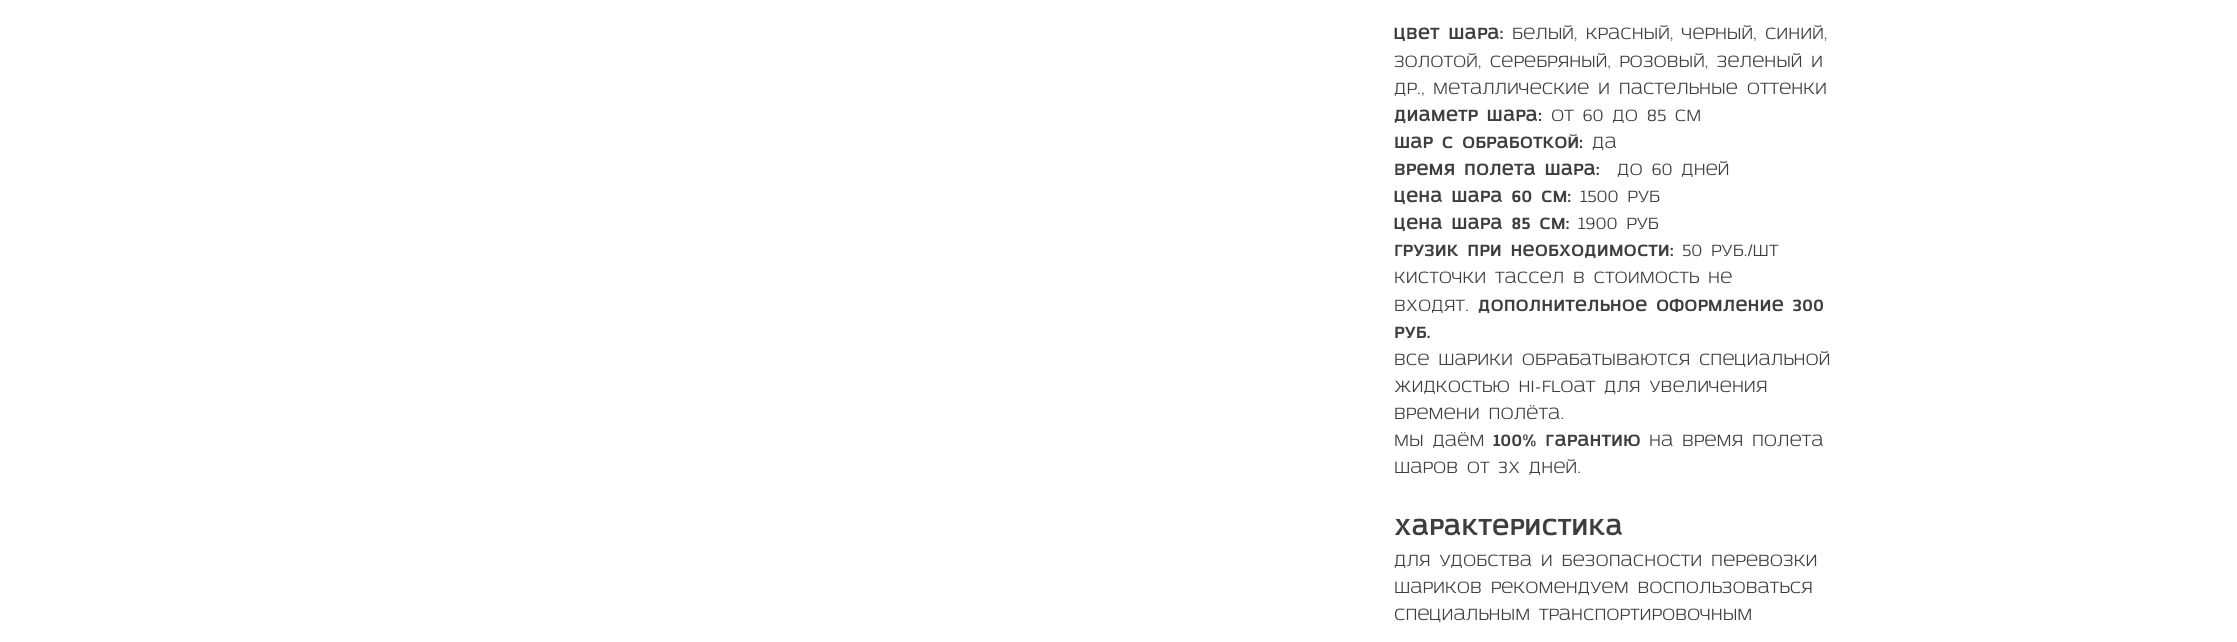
import math
import cairo

surface = cairo.ImageSurface(cairo.Format.RGB24, 2237, 642)
ctx = cairo.Context(surface)
options = cairo.FontOptions()
options.set_hint_metrics(cairo.HintMetrics.OFF)
options.set_hint_style(cairo.HintStyle.NONE)
ctx.set_font_options(options)
ctx.set_miter_limit(4)


def ink(r, g, b):
    ctx.set_source_rgb(r / 255, g / 255, b / 255)


def write(x, y, s, family, size, color, bold=False, italic=False):
    ctx.select_font_face(family, cairo.FontSlant.ITALIC if italic else cairo.FontSlant.NORMAL, cairo.FontWeight.BOLD if bold else cairo.FontWeight.NORMAL)
    ctx.set_font_size(size)
    ink(*color)
    ctx.move_to(x, y)
    ctx.show_text(s)


s1 = dict(family="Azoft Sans", size=17.5, color=(62, 62, 62), bold=True)
s2 = dict(family="Azoft Sans", size=17.5, color=(62, 62, 62))
s3 = dict(family="Azoft Sans", size=25, color=(62, 62, 62), bold=True)

ink(255, 255, 255)
ctx.paint()
write(1394, 39, "Цвет шара:", **s1)
write(1512, 39, "белый, красный, черный, синий,", **s2)
write(1394, 67, "золотой, серебряный, розовый, зеленый и", **s2)
write(1394, 94, "др., металлические и пастельные оттенки", **s2)
write(1394, 121, "Диаметр шара:", **s1)
write(1551, 121, "от 60 до 85 см", **s2)
write(1394, 148, "Шар с обработкой:", **s1)
write(1592, 148, "да", **s2)
write(1394, 175, "Время полета шара:", **s1)
write(1617, 175, "до 60 дней", **s2)
write(1394, 202, "Цена шара 60 см:", **s1)
write(1580, 202, "1500 руб", **s2)
write(1394, 229, "Цена шара 85 см:", **s1)
write(1578, 229, "1900 руб", **s2)
write(1394, 256, "Грузик при необходимости:", **s1)
write(1682, 256, "50 руб./шт", **s2)
write(1394, 283, "Кисточки Тассел в стоимость не", **s2)
write(1394, 311, "входят.", **s2)
write(1478, 311, "Дополнительное оформление 300", **s1)
write(1394, 338, "руб.", **s1)
write(1394, 365, "Все шарики обрабатываются специальной", **s2)
write(1394, 392, "жидкостью Hi-float для увеличения", **s2)
write(1394, 419, "времени полёта.", **s2)
write(1394, 446, "Мы даём", **s2)
write(1493, 446, "100% гарантию", **s1)
write(1649, 446, "на время полета", **s2)
write(1394, 473, "шаров от 3х дней.", **s2)
write(1394, 535, "Характеристика", **s3)
write(1394, 566, "Для удобства и безопасности перевозки", **s2)
write(1394, 593, "шариков рекомендуем воспользоваться", **s2)
write(1394, 620, "специальным транспортировочным", **s2)
surface.write_to_png("screenshot.png")
